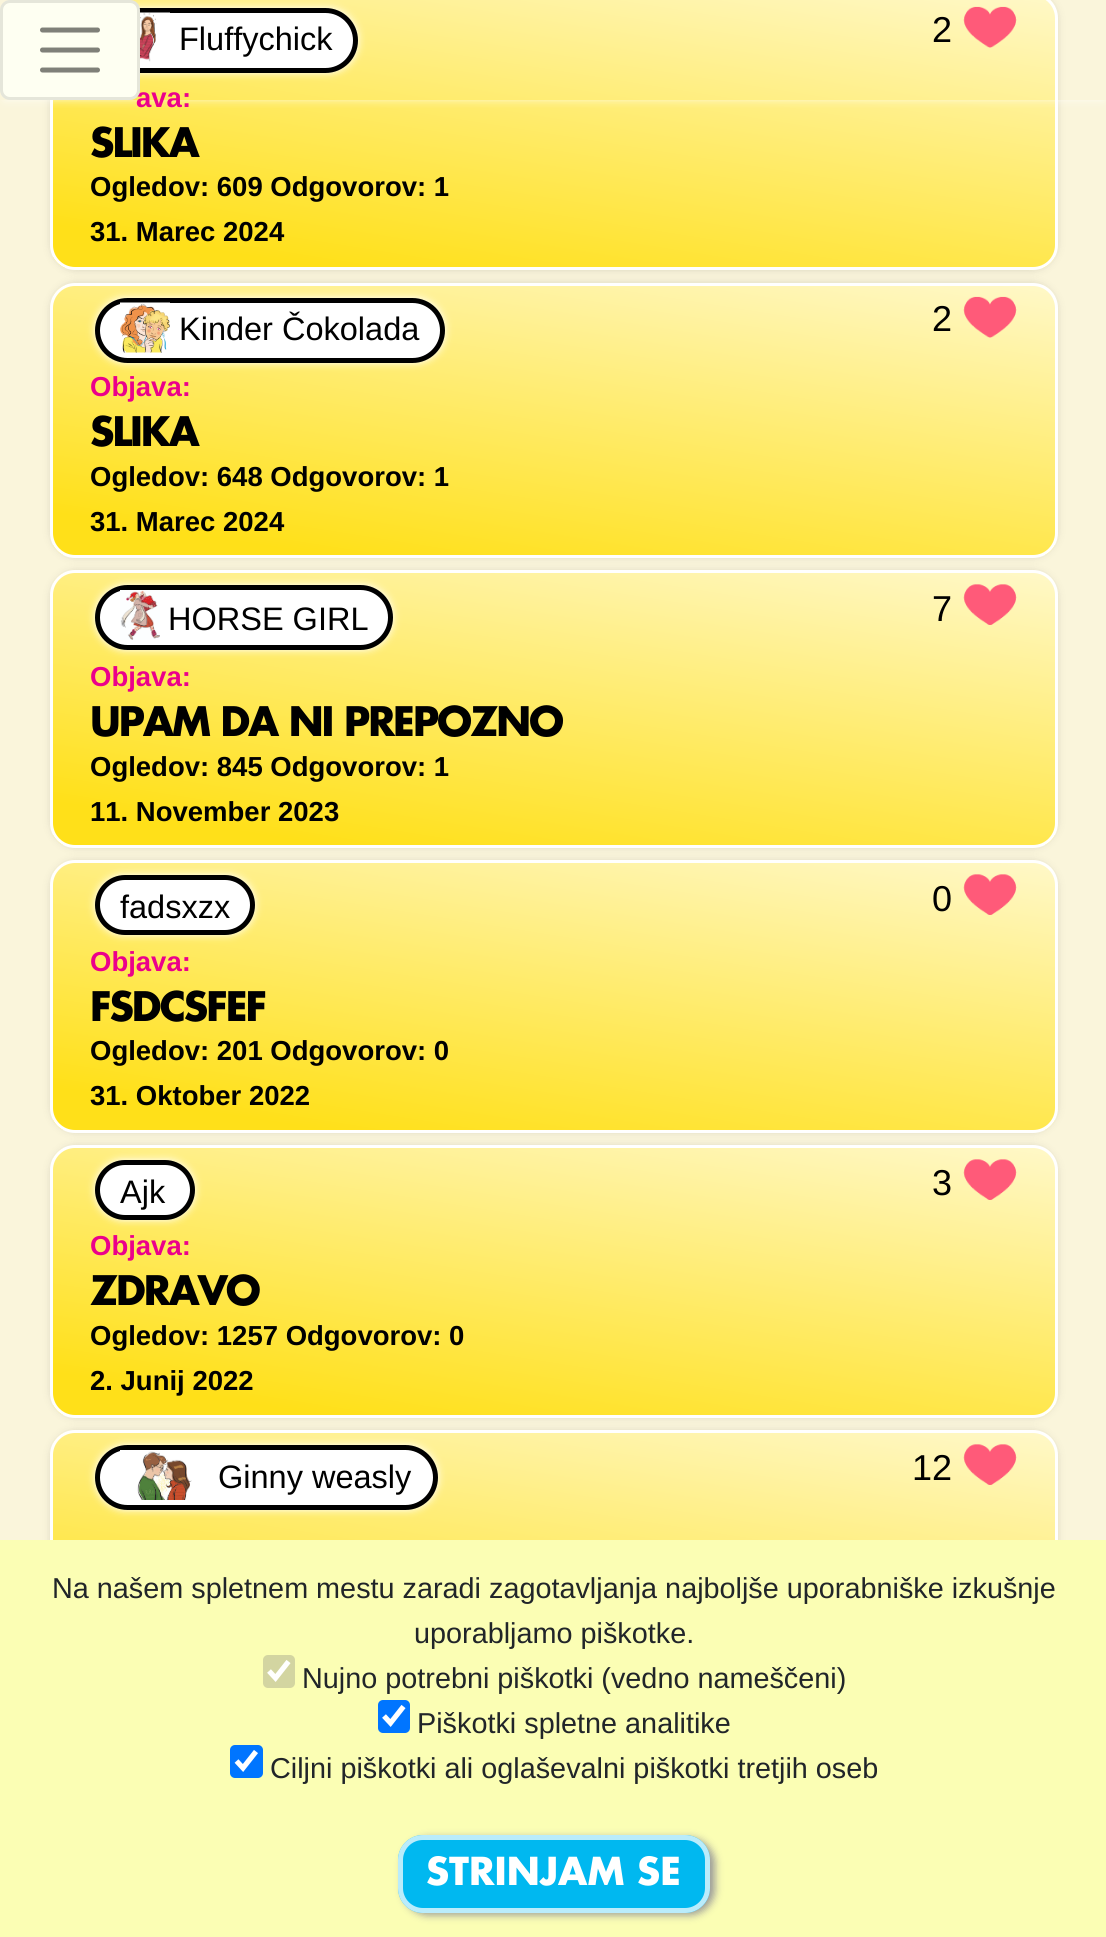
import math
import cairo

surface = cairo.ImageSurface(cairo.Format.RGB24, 1106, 1937)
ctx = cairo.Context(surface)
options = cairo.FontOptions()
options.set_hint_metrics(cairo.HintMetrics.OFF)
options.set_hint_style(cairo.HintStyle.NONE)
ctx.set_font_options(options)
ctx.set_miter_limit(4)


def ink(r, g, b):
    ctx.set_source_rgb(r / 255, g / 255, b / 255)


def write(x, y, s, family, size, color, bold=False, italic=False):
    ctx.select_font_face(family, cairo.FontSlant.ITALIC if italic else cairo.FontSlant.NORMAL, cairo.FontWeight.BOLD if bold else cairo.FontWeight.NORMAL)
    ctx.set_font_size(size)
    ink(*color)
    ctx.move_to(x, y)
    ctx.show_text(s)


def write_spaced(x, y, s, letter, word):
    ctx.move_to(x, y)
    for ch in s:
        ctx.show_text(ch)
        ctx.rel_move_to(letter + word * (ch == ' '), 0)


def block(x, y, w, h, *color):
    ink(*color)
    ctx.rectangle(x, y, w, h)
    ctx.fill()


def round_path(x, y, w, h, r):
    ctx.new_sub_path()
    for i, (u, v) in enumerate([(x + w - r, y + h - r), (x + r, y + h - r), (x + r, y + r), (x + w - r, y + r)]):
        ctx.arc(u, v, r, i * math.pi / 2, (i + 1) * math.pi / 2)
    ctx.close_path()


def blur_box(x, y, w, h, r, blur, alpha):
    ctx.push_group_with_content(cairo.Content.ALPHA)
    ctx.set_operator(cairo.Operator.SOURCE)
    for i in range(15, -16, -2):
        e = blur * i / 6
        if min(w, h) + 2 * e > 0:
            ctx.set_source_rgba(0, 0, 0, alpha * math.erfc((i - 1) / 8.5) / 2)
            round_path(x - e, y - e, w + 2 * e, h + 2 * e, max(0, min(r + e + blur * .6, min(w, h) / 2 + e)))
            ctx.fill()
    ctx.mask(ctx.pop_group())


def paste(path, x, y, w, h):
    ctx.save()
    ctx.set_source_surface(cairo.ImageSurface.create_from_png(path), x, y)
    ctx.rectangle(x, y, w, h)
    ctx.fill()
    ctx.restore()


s1 = dict(family="Liberation Sans", size=27.5, color=(235, 0, 139), bold=True)
s2 = dict(family="Liberation Sans", size=32.5, color=(0, 0, 0))
s3 = dict(family="Liberation Sans", size=36, color=(0, 0, 0))
s4 = dict(family="Liberation Sans", size=27.5, color=(0, 0, 0), bold=True)
s5 = dict(family="Liberation Sans", size=28.8, color=(33, 37, 41))
s6 = dict(family="Futura", size=37.5, color=(255, 255, 255), bold=True)

ink(250, 245, 219)
ctx.paint()
ink(0, 0, 0)
blur_box(53, -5, 1002, 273, 23, 5, 0.2)
ctx.save()
round_path(50, -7, 1008, 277, 25)
ctx.clip()
gradient = cairo.LinearGradient(520, 342, 587, -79)
gradient.add_color_stop_rgba(0.1, 1, 0.878, 0.098, 1)
gradient.add_color_stop_rgba(1, 1, 0.973, 0.784, 1)
ctx.set_source(gradient)
ctx.rectangle(53, 0, 1002, 268)
ctx.fill()
ctx.restore()
round_path(51.5, -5.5, 1005, 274, 23.5)
ink(255, 255, 255)
ctx.set_line_width(3)
ctx.stroke()
ink(255, 255, 255)
blur_box(95, 8, 263, 65, 32.5, 4, 1)
ink(255, 255, 255)
round_path(97.5, 10.5, 258, 60, 30)
ctx.fill_preserve()
ink(0, 0, 0)
ctx.set_line_width(5)
ctx.stroke()
paste("pic1.png", 140, 12, 30, 50)
paste("pic2.png", 963, 6, 54, 42)
ctx.save()
ctx.rectangle(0, 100, 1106, 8)
ctx.clip()
ink(255, 255, 255)
blur_box(5, 8, 1098, 90, 0, 5, 1)
ctx.restore()
write(136, 107, "ava:", **s1)
ink(254, 255, 242)
round_path(0, 0, 140, 100, 10)
ctx.fill()
round_path(1.5, 1.5, 137, 97, 8.5)
ctx.set_source_rgba(0, 0, 0, 0.1)
ctx.set_line_width(3)
ctx.stroke()
ctx.new_path()
ctx.move_to(42.5, 30)
ctx.line_to(97.5, 30)
ctx.move_to(42.5, 50)
ctx.line_to(97.5, 50)
ctx.move_to(42.5, 70)
ctx.line_to(97.5, 70)
ink(127, 128, 121)
ctx.set_line_width(5)
ctx.set_line_cap(cairo.LineCap.ROUND)
ctx.stroke()
write(179, 50, "Fluffychick", **s2)
write(932, 42, "2", **s3)
ctx.select_font_face("Futura", cairo.FontSlant.NORMAL, cairo.FontWeight.BOLD)
ctx.set_font_size(39.6)
write_spaced(90, 157, "SLIKA", -2, 0)
write(90, 196, "Ogledov: 609 Odgovorov: 1", **s4)
write(90, 241, "31. Marec 2024", **s4)
ink(0, 0, 0)
blur_box(53, 285, 1002, 270, 23, 5, 0.2)
ctx.save()
round_path(50, 283, 1008, 275, 25)
ctx.clip()
gradient = cairo.LinearGradient(521, 629, 587, 211)
gradient.add_color_stop_rgba(0.1, 1, 0.878, 0.098, 1)
gradient.add_color_stop_rgba(1, 1, 0.973, 0.784, 1)
ctx.set_source(gradient)
ctx.rectangle(53, 285, 1002, 270)
ctx.fill()
ctx.restore()
round_path(51.5, 284.5, 1005, 272, 23.5)
ink(255, 255, 255)
ctx.set_line_width(3)
ctx.set_line_cap(cairo.LineCap.BUTT)
ctx.stroke()
ink(255, 255, 255)
blur_box(95, 298, 350, 65, 32.5, 4, 1)
ink(255, 255, 255)
round_path(97.5, 300.5, 345, 60, 30)
ctx.fill_preserve()
ink(0, 0, 0)
ctx.set_line_width(5)
ctx.stroke()
paste("pic3.png", 120, 302, 50, 51)
write(179, 340, "Kinder Čokolada", **s2)
write(932, 331, "2", **s3)
paste("pic4.png", 963, 296, 54, 42)
write(90, 396, "Objava:", **s1)
ctx.select_font_face("Futura", cairo.FontSlant.NORMAL, cairo.FontWeight.BOLD)
ctx.set_font_size(39.6)
ink(0, 0, 0)
write_spaced(90, 446, "SLIKA", -2, 0)
write(90, 486, "Ogledov: 648 Odgovorov: 1", **s4)
write(90, 531, "31. Marec 2024", **s4)
ink(0, 0, 0)
blur_box(53, 573, 1002, 272, 23, 5, 0.2)
ctx.save()
round_path(50, 570, 1008, 278, 25)
ctx.clip()
gradient = cairo.LinearGradient(520, 919, 587, 498)
gradient.add_color_stop_rgba(0.1, 1, 0.878, 0.098, 1)
gradient.add_color_stop_rgba(1, 1, 0.973, 0.784, 1)
ctx.set_source(gradient)
ctx.rectangle(53, 573, 1002, 272)
ctx.fill()
ctx.restore()
round_path(51.5, 571.5, 1005, 275, 23.5)
ink(255, 255, 255)
ctx.set_line_width(3)
ctx.stroke()
ink(255, 255, 255)
blur_box(95, 585, 298, 65, 32.5, 4, 1)
ink(255, 255, 255)
round_path(97.5, 587.5, 293, 60, 30)
ctx.fill_preserve()
ink(0, 0, 0)
ctx.set_line_width(5)
ctx.stroke()
paste("pic5.png", 120, 590, 40, 50)
write(168, 630, "HORSE GIRL", **s2)
write(932, 621, "7", **s3)
paste("pic6.png", 963, 584, 54, 41)
write(90, 686, "Objava:", **s1)
ctx.select_font_face("Futura", cairo.FontSlant.NORMAL, cairo.FontWeight.BOLD)
ctx.set_font_size(39.6)
ink(0, 0, 0)
write_spaced(90, 736, "UPAM DA NI PREPOZNO", -2, 0)
write(90, 776, "Ogledov: 845 Odgovorov: 1", **s4)
write(90, 821, "11. November 2023", **s4)
ink(0, 0, 0)
blur_box(53, 863, 1002, 267, 23, 5, 0.2)
ctx.save()
round_path(50, 860, 1008, 273, 25)
ctx.clip()
gradient = cairo.LinearGradient(521, 1204, 587, 788)
gradient.add_color_stop_rgba(0.1, 1, 0.878, 0.098, 1)
gradient.add_color_stop_rgba(1, 1, 0.973, 0.784, 1)
ctx.set_source(gradient)
ctx.rectangle(53, 863, 1002, 267)
ctx.fill()
ctx.restore()
round_path(51.5, 861.5, 1005, 270, 23.5)
ink(255, 255, 255)
ctx.set_line_width(3)
ctx.stroke()
ink(255, 255, 255)
blur_box(95, 875, 160, 60, 30, 4, 1)
ink(255, 255, 255)
round_path(97.5, 877.5, 155, 55, 27.5)
ctx.fill_preserve()
ink(0, 0, 0)
ctx.set_line_width(5)
ctx.stroke()
write(120, 918, "fadsxzx", **s2)
write(932, 911, "0", **s3)
paste("pic7.png", 963, 874, 54, 41)
write(90, 971, "Objava:", **s1)
ctx.select_font_face("Futura", cairo.FontSlant.NORMAL, cairo.FontWeight.BOLD)
ctx.set_font_size(39.6)
ink(0, 0, 0)
write_spaced(90, 1021, "FSDCSFEF", -2, 0)
write(90, 1060, "Ogledov: 201 Odgovorov: 0", **s4)
write(90, 1105, "31. Oktober 2022", **s4)
ink(0, 0, 0)
blur_box(53, 1148, 1002, 267, 23, 5, 0.2)
ctx.save()
round_path(50, 1145, 1008, 273, 25)
ctx.clip()
gradient = cairo.LinearGradient(521, 1489, 587, 1073)
gradient.add_color_stop_rgba(0.1, 1, 0.878, 0.098, 1)
gradient.add_color_stop_rgba(1, 1, 0.973, 0.784, 1)
ctx.set_source(gradient)
ctx.rectangle(53, 1148, 1002, 267)
ctx.fill()
ctx.restore()
round_path(51.5, 1146.5, 1005, 270, 23.5)
ink(255, 255, 255)
ctx.set_line_width(3)
ctx.stroke()
ink(255, 255, 255)
blur_box(95, 1160, 100, 60, 30, 4, 1)
ink(255, 255, 255)
round_path(97.5, 1162.5, 95, 55, 27.5)
ctx.fill_preserve()
ink(0, 0, 0)
ctx.set_line_width(5)
ctx.stroke()
write(120, 1203, "Ajk", **s2)
write(932, 1195, "3", **s3)
paste("pic7.png", 963, 1159, 54, 41)
write(90, 1255, "Objava:", **s1)
ctx.select_font_face("Futura", cairo.FontSlant.NORMAL, cairo.FontWeight.BOLD)
ctx.set_font_size(39.6)
ink(0, 0, 0)
write_spaced(90, 1305, "ZDRAVO", -2, 0)
write(90, 1345, "Ogledov: 1257 Odgovorov: 0", **s4)
write(90, 1390, "2. Junij 2022", **s4)
ink(0, 0, 0)
blur_box(53, 1433, 1002, 272, 23, 5, 0.2)
ctx.save()
round_path(50, 1430, 1008, 278, 25)
ctx.clip()
gradient = cairo.LinearGradient(520, 1779, 587, 1358)
gradient.add_color_stop_rgba(0.1, 1, 0.878, 0.098, 1)
gradient.add_color_stop_rgba(1, 1, 0.973, 0.784, 1)
ctx.set_source(gradient)
ctx.rectangle(53, 1433, 1002, 107)
ctx.fill()
ctx.restore()
round_path(51.5, 1431.5, 1005, 275, 23.5)
ink(255, 255, 255)
ctx.set_line_width(3)
ctx.stroke()
ink(255, 255, 255)
blur_box(95, 1445, 343, 65, 32.5, 4, 1)
ink(255, 255, 255)
round_path(97.5, 1447.5, 338, 60, 30)
ctx.fill_preserve()
ink(0, 0, 0)
ctx.set_line_width(5)
ctx.stroke()
paste("pic8.png", 120, 1450, 72, 50)
write(218, 1488, "Ginny weasly", **s2)
write(912, 1480, "12", **s3)
paste("pic6.png", 963, 1444, 54, 41)
block(0, 1540, 1106, 397, 251, 254, 180)
write(52, 1598, "Na našem spletnem mestu zaradi zagotavljanja najboljše uporabniške izkušnje", **s5)
write(414, 1643, "uporabljamo piškotke.", **s5)
ink(211, 213, 161)
round_path(263, 1655, 32, 33, 5)
ctx.fill()
ctx.new_path()
ctx.move_to(269, 1671)
ctx.line_to(275.5, 1678)
ctx.line_to(288.5, 1661.5)
ink(255, 255, 255)
ctx.set_line_width(5.2)
ctx.stroke()
write(302, 1688, "Nujno potrebni piškotki (vedno nameščeni)", **s5)
ink(0, 117, 255)
round_path(378, 1700, 32, 33, 5)
ctx.fill()
ctx.new_path()
ctx.move_to(384, 1716)
ctx.line_to(390.5, 1723)
ctx.line_to(403.5, 1706.5)
ink(255, 255, 255)
ctx.stroke()
write(417, 1733, "Piškotki spletne analitike", **s5)
ink(0, 117, 255)
round_path(230, 1745, 33, 33, 5)
ctx.fill()
ctx.new_path()
ctx.move_to(236.5, 1761)
ctx.line_to(243, 1768)
ctx.line_to(256, 1751.5)
ink(255, 255, 255)
ctx.stroke()
write(270, 1778, "Ciljni piškotki ali oglaševalni piškotki tretjih oseb", **s5)
ink(153, 153, 153)
blur_box(403, 1838, 312, 77, 25, 4, 1)
ink(0, 184, 240)
round_path(398, 1835, 312, 78, 25)
ctx.fill()
round_path(400.5, 1837.5, 307, 73, 22.5)
ctx.set_source_rgba(1, 1, 1, 0.73)
ctx.set_line_width(5)
ctx.stroke()
write(426, 1885, "STRINJAM SE", **s6)
surface.write_to_png("screenshot.png")
